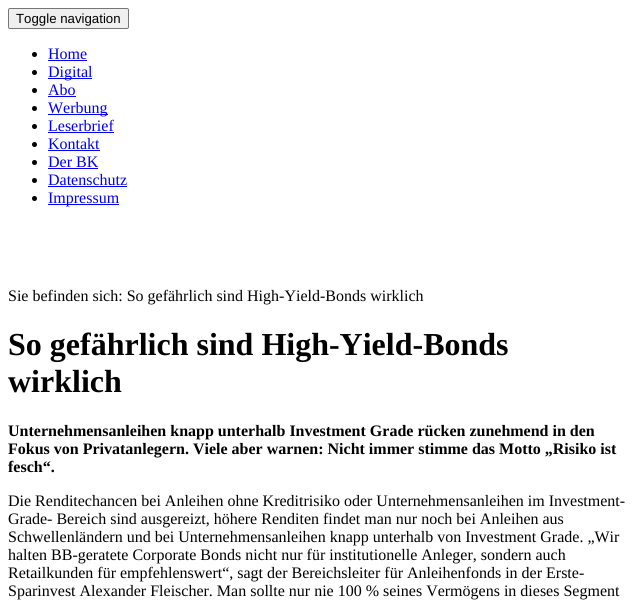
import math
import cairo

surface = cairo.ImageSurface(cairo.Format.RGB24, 638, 605)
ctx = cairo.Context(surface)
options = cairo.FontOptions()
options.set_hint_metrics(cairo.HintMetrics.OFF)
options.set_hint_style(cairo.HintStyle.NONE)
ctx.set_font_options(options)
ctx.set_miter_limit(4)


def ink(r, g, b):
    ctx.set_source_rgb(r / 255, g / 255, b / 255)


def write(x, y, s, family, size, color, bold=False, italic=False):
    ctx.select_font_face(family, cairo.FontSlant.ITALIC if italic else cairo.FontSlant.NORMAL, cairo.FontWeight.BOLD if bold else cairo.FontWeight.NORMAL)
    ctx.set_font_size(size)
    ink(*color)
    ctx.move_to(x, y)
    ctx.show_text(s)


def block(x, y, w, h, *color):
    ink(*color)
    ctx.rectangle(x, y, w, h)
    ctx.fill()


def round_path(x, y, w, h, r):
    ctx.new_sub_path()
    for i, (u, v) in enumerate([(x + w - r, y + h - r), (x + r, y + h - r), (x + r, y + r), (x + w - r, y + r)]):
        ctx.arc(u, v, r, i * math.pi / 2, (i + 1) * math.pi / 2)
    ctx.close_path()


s1 = dict(family="Liberation Sans", size=13.25, color=(0, 0, 0))
s2 = dict(family="Liberation Serif", size=16, color=(0, 0, 238))
s3 = dict(family="Liberation Serif", size=16, color=(0, 0, 0))
s4 = dict(family="Liberation Serif", size=32, color=(0, 0, 0), bold=True)
s5 = dict(family="Liberation Serif", size=16, color=(0, 0, 0), bold=True)

ink(255, 255, 255)
ctx.paint()
ink(239, 239, 239)
round_path(8.5, 8.5, 120, 20, 1.5)
ctx.fill_preserve()
ink(118, 118, 118)
ctx.set_line_width(1)
ctx.stroke()
write(16, 23, "Toggle navigation", **s1)
ctx.new_path()
ctx.arc(34.5, 54.5, 2.5, 0, 2 * math.pi)
ctx.fill()
write(48, 59, "Home", **s2)
block(48, 60, 39, 1, 0, 0, 238)
ink(0, 0, 0)
ctx.new_path()
ctx.arc(34.5, 72.5, 2.5, 0, 2 * math.pi)
ctx.fill()
block(48, 78, 44, 1, 0, 0, 238)
write(48, 77, "Digital", **s2)
ink(0, 0, 0)
ctx.new_path()
ctx.arc(34.5, 90.5, 2.5, 0, 2 * math.pi)
ctx.fill()
write(48, 95, "Abo", **s2)
block(48, 96, 28, 1, 0, 0, 238)
ink(0, 0, 0)
ctx.new_path()
ctx.arc(34.5, 108.5, 2.5, 0, 2 * math.pi)
ctx.fill()
block(48, 114, 60, 1, 0, 0, 238)
write(48, 113, "Werbung", **s2)
ink(0, 0, 0)
ctx.new_path()
ctx.arc(34.5, 126.5, 2.5, 0, 2 * math.pi)
ctx.fill()
write(48, 131, "Leserbrief", **s2)
block(48, 132, 66, 1, 0, 0, 238)
ink(0, 0, 0)
ctx.new_path()
ctx.arc(34.5, 144.5, 2.5, 0, 2 * math.pi)
ctx.fill()
write(48, 149, "Kontakt", **s2)
block(48, 150, 52, 1, 0, 0, 238)
ink(0, 0, 0)
ctx.new_path()
ctx.arc(34.5, 162.5, 2.5, 0, 2 * math.pi)
ctx.fill()
write(48, 167, "Der BK", **s2)
block(48, 168, 50, 1, 0, 0, 238)
ink(0, 0, 0)
ctx.new_path()
ctx.arc(34.5, 180.5, 2.5, 0, 2 * math.pi)
ctx.fill()
write(48, 185, "Datenschutz", **s2)
block(48, 186, 79, 1, 0, 0, 238)
ink(0, 0, 0)
ctx.new_path()
ctx.arc(34.5, 198.5, 2.5, 0, 2 * math.pi)
ctx.fill()
block(48, 204, 71, 1, 0, 0, 238)
write(48, 203, "Impressum", **s2)
write(8, 301, "Sie befinden sich: So gefährlich sind High-Yield-Bonds wirklich", **s3)
write(8, 355, "So gefährlich sind High-Yield-Bonds", **s4)
write(8, 392, "wirklich", **s4)
write(8, 436, "Unternehmensanleihen knapp unterhalb Investment Grade rücken zunehmend in den", **s5)
write(8, 454, "Fokus von Privatanlegern. Viele aber warnen: Nicht immer stimme das Motto „Risiko ist", **s5)
write(8, 472, "fesch“.", **s5)
write(8, 506, "Die Renditechancen bei Anleihen ohne Kreditrisiko oder Unternehmensanleihen im Investment-", **s3)
write(8, 524, "Grade- Bereich sind ausgereizt, höhere Renditen findet man nur noch bei Anleihen aus", **s3)
write(8, 542, "Schwellenländern und bei Unternehmensanleihen knapp unterhalb von Investment Grade. „Wir", **s3)
write(8, 560, "halten BB-geratete Corporate Bonds nicht nur für institutionelle Anleger, sondern auch", **s3)
write(8, 578, "Retailkunden für empfehlenswert“, sagt der Bereichsleiter für Anleihenfonds in der Erste-", **s3)
write(8, 596, "Sparinvest Alexander Fleischer. Man sollte nur nie 100 % seines Vermögens in dieses Segment", **s3)
surface.write_to_png("screenshot.png")
